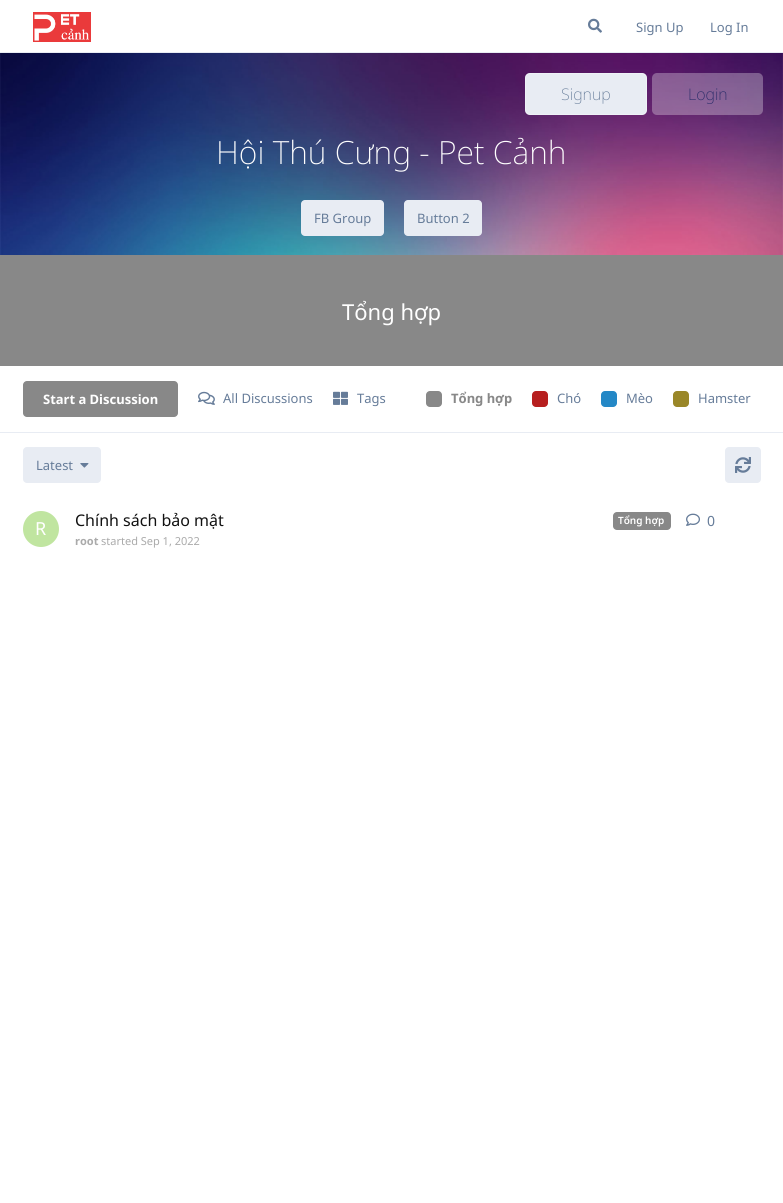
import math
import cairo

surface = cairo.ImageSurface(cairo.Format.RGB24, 783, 1203)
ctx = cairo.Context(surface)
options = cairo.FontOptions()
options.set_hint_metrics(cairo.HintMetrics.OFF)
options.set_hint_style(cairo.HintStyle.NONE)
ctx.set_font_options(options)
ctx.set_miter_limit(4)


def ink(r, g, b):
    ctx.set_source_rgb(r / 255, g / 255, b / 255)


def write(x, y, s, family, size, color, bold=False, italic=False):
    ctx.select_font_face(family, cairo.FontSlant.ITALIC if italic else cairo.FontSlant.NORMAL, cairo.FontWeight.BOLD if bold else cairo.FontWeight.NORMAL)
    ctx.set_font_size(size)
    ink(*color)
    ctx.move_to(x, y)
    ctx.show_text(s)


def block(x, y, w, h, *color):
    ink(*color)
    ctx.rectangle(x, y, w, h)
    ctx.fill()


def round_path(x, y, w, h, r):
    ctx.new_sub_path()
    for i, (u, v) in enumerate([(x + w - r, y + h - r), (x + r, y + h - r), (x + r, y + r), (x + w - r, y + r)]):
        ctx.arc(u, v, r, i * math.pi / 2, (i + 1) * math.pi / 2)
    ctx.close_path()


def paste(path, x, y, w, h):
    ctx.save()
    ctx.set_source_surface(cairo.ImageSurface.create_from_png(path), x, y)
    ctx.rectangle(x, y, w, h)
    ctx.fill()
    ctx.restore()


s1 = dict(family="Noto Sans", size=13, color=(102, 124, 153))
s2 = dict(family="Noto Sans ExtraLight", size=16, color=(102, 124, 153))
s3 = dict(family="Noto Sans ExtraLight", size=16, color=(39, 42, 103))
s4 = dict(family="Noto Sans ExtraLight", size=32, color=(255, 255, 255))
s5 = dict(family="Noto Sans", size=22, color=(255, 255, 255))
s6 = dict(family="Noto Sans", size=13, color=(255, 255, 255), bold=True)
s7 = dict(family="Noto Sans", size=13, color=(136, 136, 136), bold=True)
s8 = dict(family="Noto Sans", size=18, color=(255, 255, 255))
s9 = dict(family="Noto Sans", size=16, color=(17, 17, 17))
s10 = dict(family="Noto Sans SemiBold", size=10, color=(255, 255, 255))
s11 = dict(family="Noto Sans", size=11, color=(170, 170, 170), bold=True)
s12 = dict(family="Noto Sans", size=11, color=(170, 170, 170))
s13 = dict(family="Noto Sans", size=14, color=(102, 124, 153))

ink(255, 255, 255)
ctx.paint()
paste("pic1.png", 33, 12, 58, 30)
paste("pic2.png", 588, 18, 14, 15)
write(636, 32, "Sign Up", **s1)
write(710, 32, "Log In", **s1)
block(0, 52, 783, 1, 232, 236, 243)
paste("pic3.png", 0, 53, 783, 202)
round_path(525, 73, 122, 42, 5)
ctx.fill()
round_path(525.5, 73.5, 121, 41, 4.5)
ctx.set_source_rgba(1, 1, 1, 0.3)
ctx.set_line_width(1)
ctx.stroke()
write(561, 100, "Signup", **s2)
ctx.set_source_rgba(1, 1, 1, 0.3)
round_path(652, 73, 111, 42, 5)
ctx.fill()
write(688, 100, "Login", **s3)
write(216, 164, "Hội Thú Cưng - Pet Cảnh", **s4)
ink(232, 236, 243)
round_path(301, 200, 83, 36, 4)
ctx.fill()
write(314, 223, "FB Group", **s1)
ink(232, 236, 243)
round_path(404, 200, 78, 36, 4)
ctx.fill()
write(417, 223, "Button 2", **s1)
block(0, 255, 783, 111, 136, 136, 136)
write(342, 320, "Tổng hợp", **s5)
ink(136, 136, 136)
round_path(23, 381, 155, 36, 4)
ctx.fill()
write(43, 404, "Start a Discussion", **s6)
paste("pic4.png", 198, 391, 17, 14)
write(223, 403, "All Discussions", **s1)
paste("pic5.png", 333, 391, 15, 14)
write(357, 403, "Tags", **s1)
ink(136, 136, 136)
round_path(426, 391, 16, 16, 4)
ctx.fill()
write(451, 403, "Tổng hợp", **s7)
ink(183, 31, 31)
round_path(532, 391, 16, 16, 4)
ctx.fill()
write(557, 403, "Chó", **s1)
ink(36, 136, 198)
round_path(601, 391, 16, 16, 4)
ctx.fill()
write(626, 403, "Mèo", **s1)
ink(154, 135, 40)
round_path(673, 391, 16, 16, 4)
ctx.fill()
write(698, 403, "Hamster", **s1)
block(0, 432, 783, 1, 232, 236, 243)
round_path(23, 447, 78, 36, 4)
ctx.fill()
write(36, 470, "Latest", **s1)
paste("pic6.png", 80, 463, 9, 5)
ink(232, 236, 243)
round_path(725, 447, 36, 36, 4)
ctx.fill()
paste("pic7.png", 735, 457, 16, 16)
ink(192, 229, 160)
ctx.arc(41, 529, 18, 0, 2 * math.pi)
ctx.fill()
write(35, 535, "R", **s8)
write(75, 526, "Chính sách bảo mật", **s9)
ink(136, 136, 136)
round_path(613, 512, 58, 18, 4)
ctx.fill()
write(618, 524, "Tổng hợp", **s10)
write(75, 545, "root", **s11)
write(101, 545, "started Sep 1, 2022", **s12)
paste("pic8.png", 686, 513, 14, 13)
write(707, 526, "0", **s13)
surface.write_to_png("screenshot.png")
